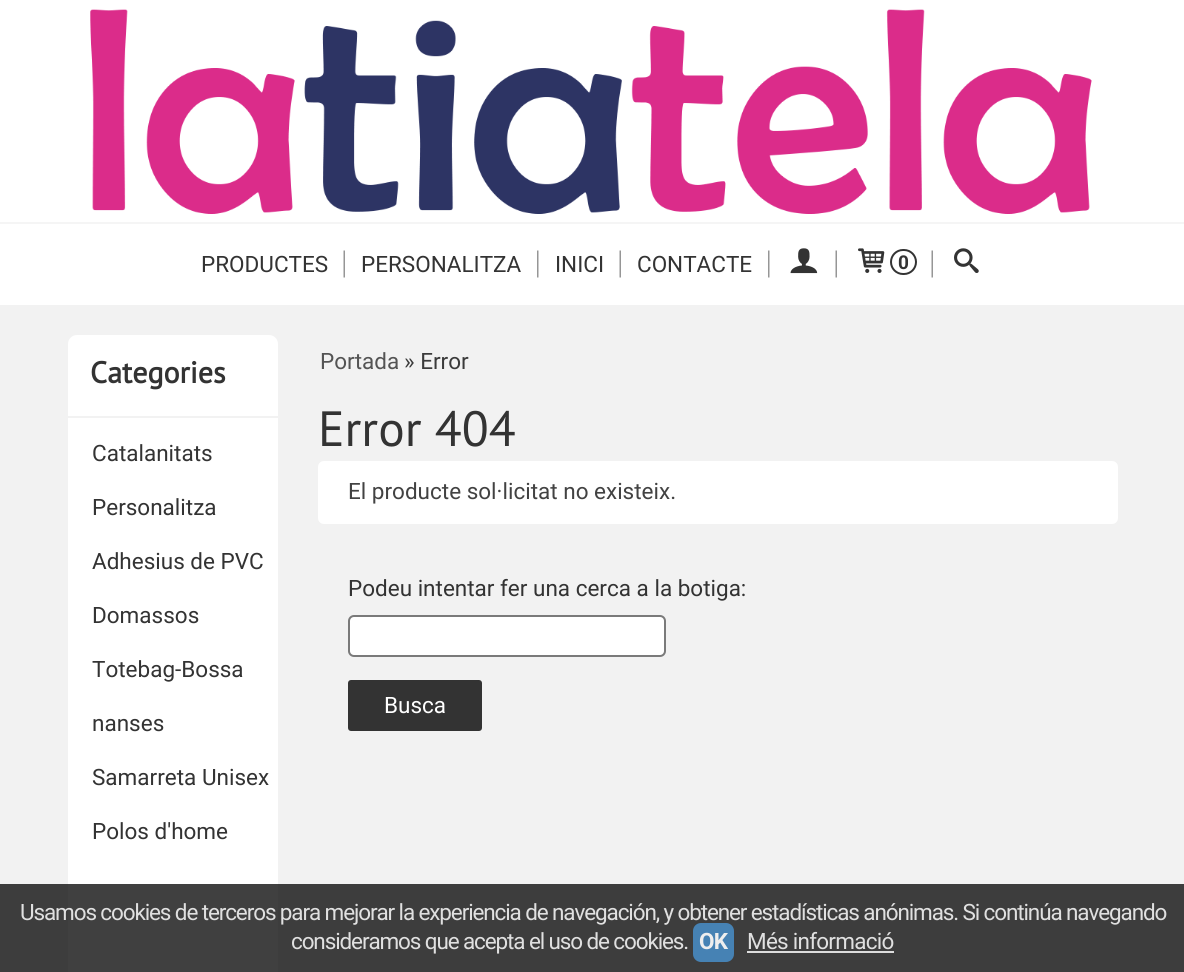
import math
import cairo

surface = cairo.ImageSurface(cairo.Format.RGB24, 1184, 972)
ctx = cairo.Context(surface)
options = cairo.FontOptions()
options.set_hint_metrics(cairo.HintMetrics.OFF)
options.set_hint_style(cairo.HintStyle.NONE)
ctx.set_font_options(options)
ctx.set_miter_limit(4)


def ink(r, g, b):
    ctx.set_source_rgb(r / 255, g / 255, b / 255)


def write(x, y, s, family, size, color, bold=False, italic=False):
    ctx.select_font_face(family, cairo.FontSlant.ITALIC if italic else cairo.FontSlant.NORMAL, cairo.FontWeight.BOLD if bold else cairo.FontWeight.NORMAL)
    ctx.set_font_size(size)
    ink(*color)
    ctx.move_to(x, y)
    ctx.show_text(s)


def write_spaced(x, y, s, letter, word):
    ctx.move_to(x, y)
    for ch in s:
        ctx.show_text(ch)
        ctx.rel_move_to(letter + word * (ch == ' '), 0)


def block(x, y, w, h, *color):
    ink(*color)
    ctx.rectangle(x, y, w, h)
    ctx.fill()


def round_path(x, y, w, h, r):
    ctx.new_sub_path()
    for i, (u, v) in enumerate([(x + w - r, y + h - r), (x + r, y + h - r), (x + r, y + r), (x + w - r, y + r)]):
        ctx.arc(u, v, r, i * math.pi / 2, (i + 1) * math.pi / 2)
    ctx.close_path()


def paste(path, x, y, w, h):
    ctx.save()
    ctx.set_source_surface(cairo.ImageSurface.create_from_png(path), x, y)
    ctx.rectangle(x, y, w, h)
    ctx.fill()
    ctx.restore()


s1 = dict(family="Roboto", size=22.5, color=(51, 51, 51))
s2 = dict(family="Roboto", size=19, color=(51, 51, 51), bold=True)
s3 = dict(family="PT Sans", size=30, color=(51, 51, 51), bold=True)
s4 = dict(family="Roboto", size=22.5, color=(84, 84, 84))
s5 = dict(family="Roboto", size=22.5, color=(59, 59, 59))
s6 = dict(family="PT Sans", size=49.5, color=(51, 51, 51))
s7 = dict(family="Roboto", size=22.5, color=(66, 66, 66))
s8 = dict(family="Roboto", size=22.5, color=(255, 255, 255))

ink(242, 242, 242)
ctx.paint()
block(0, 0, 1184, 222, 255, 255, 255)
paste("pic1.png", 90, 9, 1002, 205)
block(0, 224, 1184, 81, 255, 255, 255)
block(0, 222, 1184, 2, 245, 245, 245)
write(201, 272, "PRODUCTES", **s1)
paste("pic2.png", 343, 250, 2, 28)
write(361, 272, "PERSONALITZA", **s1)
paste("pic3.png", 537, 250, 2, 28)
write(555, 272, "INICI", **s1)
paste("pic2.png", 619, 250, 2, 28)
write(637, 272, "CONTACTE", **s1)
paste("pic3.png", 768, 250, 2, 28)
paste("pic4.png", 790, 248, 28, 26)
paste("pic2.png", 835, 250, 2, 28)
paste("pic5.png", 858, 248, 27, 25)
round_path(891, 250, 25, 24, 12)
ctx.stroke()
write(898, 269, "0", **s2)
paste("pic2.png", 931, 250, 2, 28)
paste("pic6.png", 954, 248, 25, 25)
ink(255, 255, 255)
round_path(68, 335, 210, 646, 9)
ctx.fill()
block(68, 416, 210, 2, 242, 242, 242)
write(90, 383, "Categories", **s3)
write(92, 461, "Catalanitats", **s1)
write(92, 515, "Personalitza", **s1)
write(92, 569, "Adhesius de PVC", **s1)
write(92, 623, "Domassos", **s1)
write(92, 677, "Totebag-Bossa", **s1)
write(92, 731, "nanses", **s1)
write(92, 785, "Samarreta Unisex", **s1)
write(92, 839, "Polos d'home", **s1)
write(320, 369, "Portada", **s4)
write(404, 369, "» Error", **s5)
write(318, 446, "Error 404", **s6)
ink(255, 255, 255)
round_path(318, 461, 800, 63, 6)
ctx.fill()
write(348, 499, "El producte sol·licitat no existeix.", **s7)
write(348, 596, "Podeu intentar fer una cerca a la botiga:", **s1)
ink(255, 255, 255)
round_path(349, 616, 316, 40, 5)
ctx.fill_preserve()
ink(122, 122, 122)
ctx.stroke()
ink(51, 51, 51)
round_path(348, 680, 134, 51, 3)
ctx.fill()
write(384, 713, "Busca", **s8)
ctx.set_source_rgba(0, 0, 0, 0.75)
ctx.rectangle(0, 884, 1184, 88)
ctx.fill()
ink(224, 224, 224)
write_spaced(20, 920, "Usamos cookies de terceros para mejorar la experiencia de navegación, y obtener estadísticas anónimas. Si continúa navegando", -1.12, 0)
write_spaced(291, 949, "consideramos que acepta el uso de cookies.", -1.12, 0)
ink(70, 130, 180)
round_path(693, 923, 41, 39, 8)
ctx.fill()
ctx.select_font_face("Roboto", cairo.FontSlant.NORMAL, cairo.FontWeight.BOLD)
ink(238, 238, 238)
write_spaced(699, 949, "OK", -0.75, 0)
ctx.select_font_face("Roboto")
ink(224, 224, 224)
write_spaced(747, 949, "Més informació", -0.75, 0)
block(747, 951, 147, 2, 221, 221, 221)
surface.write_to_png("screenshot.png")
